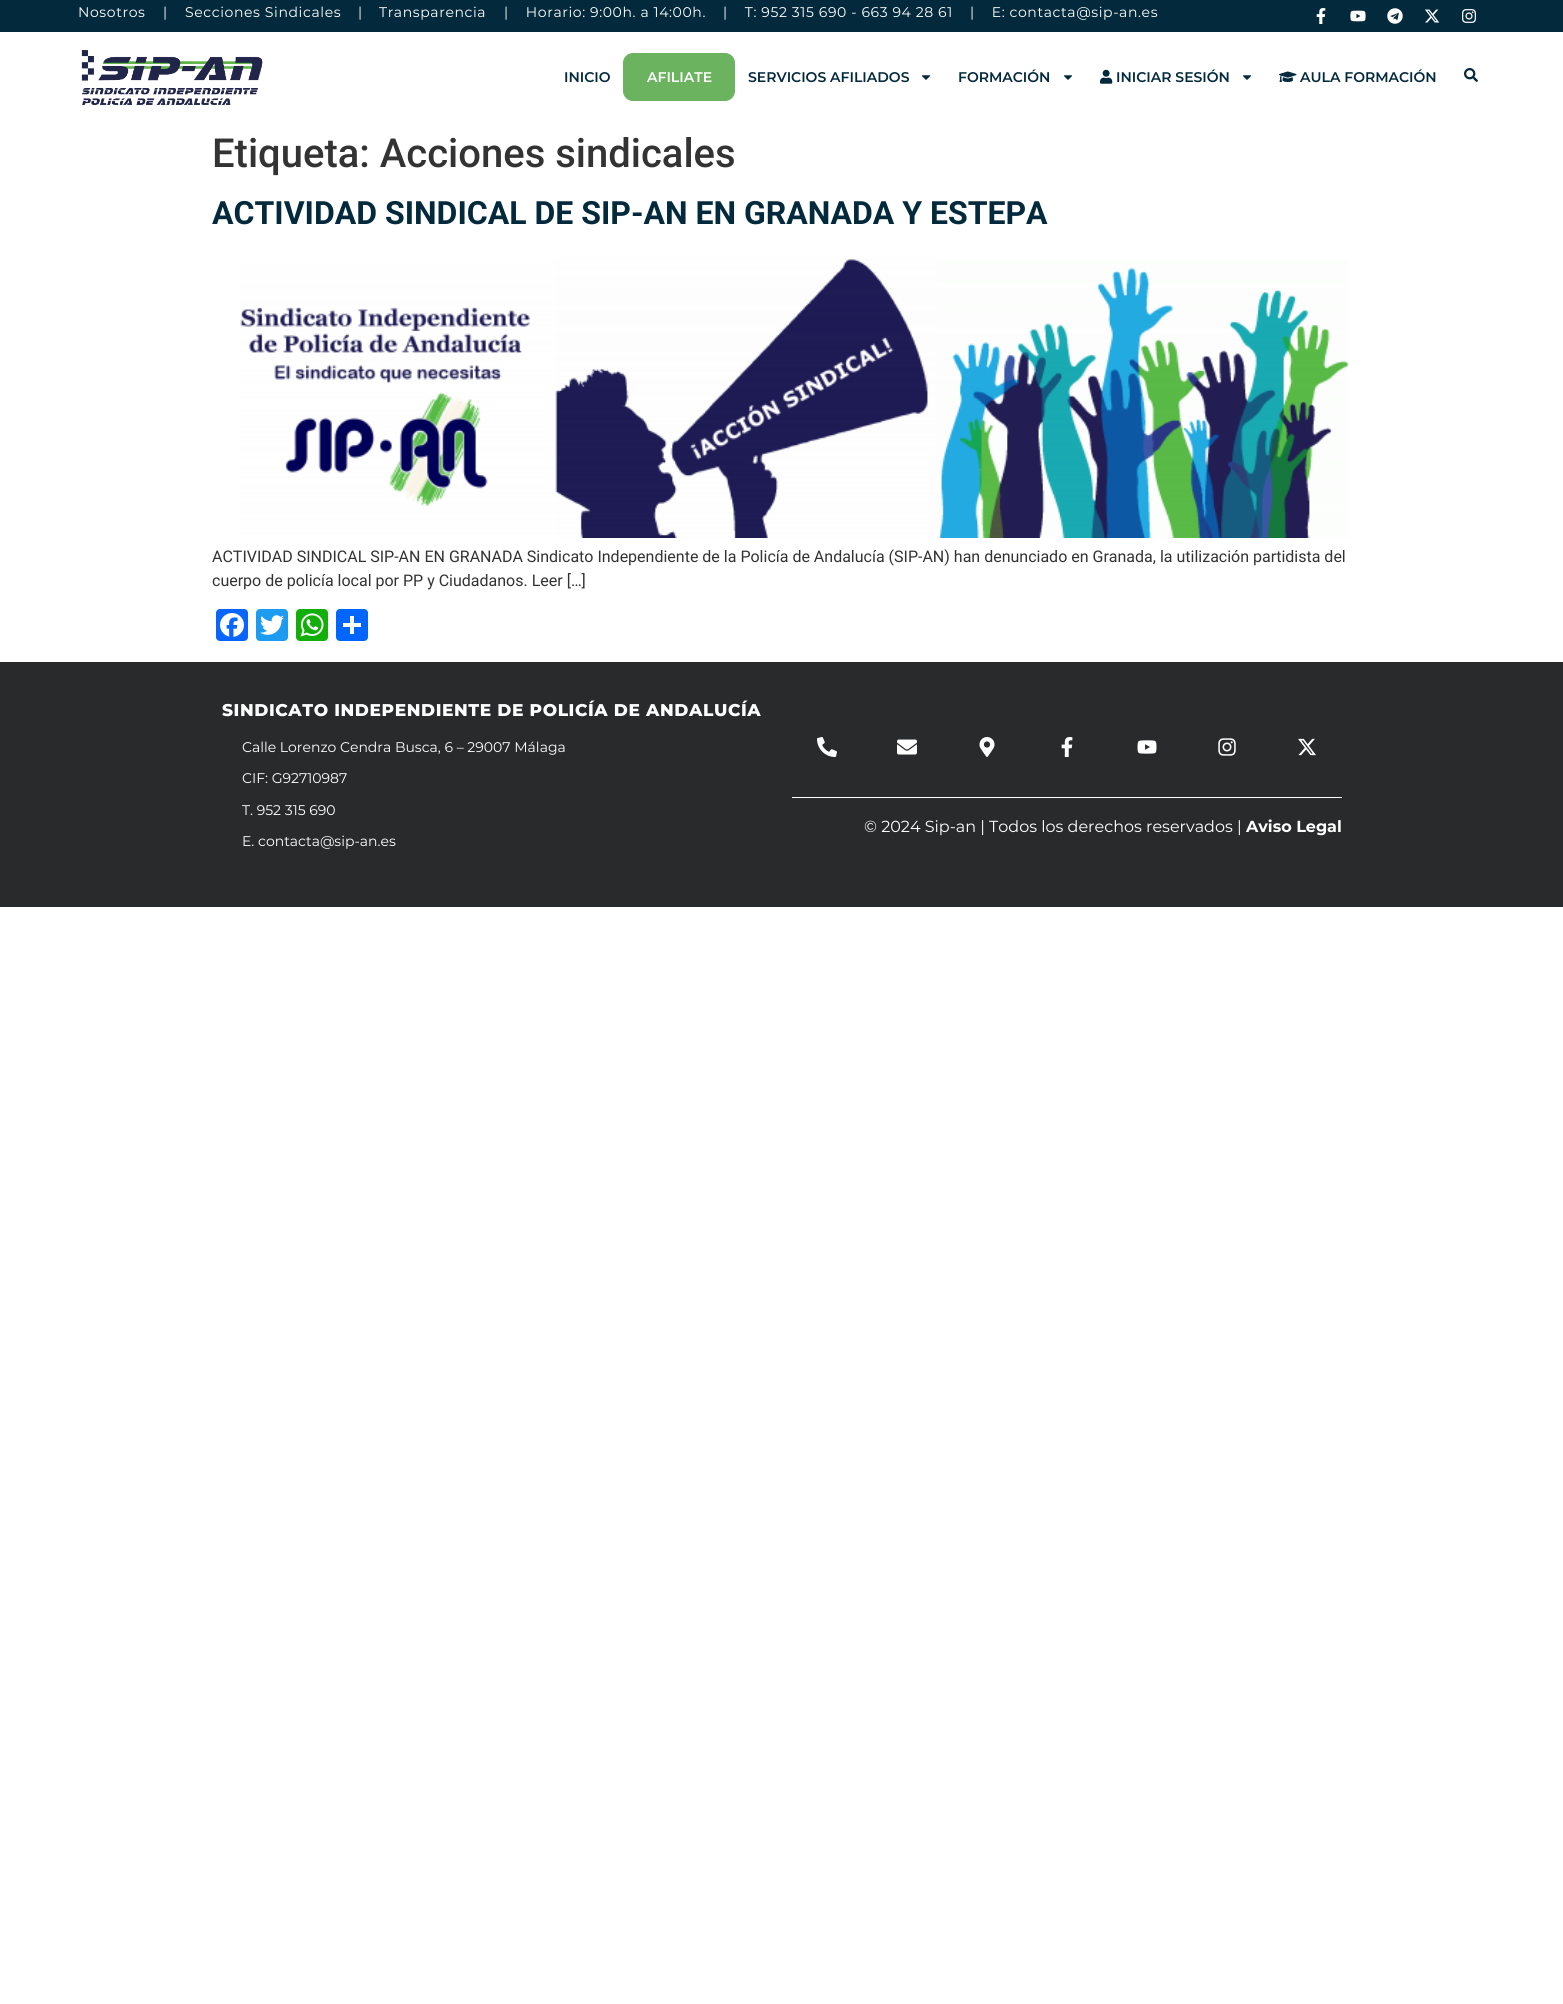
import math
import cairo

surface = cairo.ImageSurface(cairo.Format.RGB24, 1563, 2004)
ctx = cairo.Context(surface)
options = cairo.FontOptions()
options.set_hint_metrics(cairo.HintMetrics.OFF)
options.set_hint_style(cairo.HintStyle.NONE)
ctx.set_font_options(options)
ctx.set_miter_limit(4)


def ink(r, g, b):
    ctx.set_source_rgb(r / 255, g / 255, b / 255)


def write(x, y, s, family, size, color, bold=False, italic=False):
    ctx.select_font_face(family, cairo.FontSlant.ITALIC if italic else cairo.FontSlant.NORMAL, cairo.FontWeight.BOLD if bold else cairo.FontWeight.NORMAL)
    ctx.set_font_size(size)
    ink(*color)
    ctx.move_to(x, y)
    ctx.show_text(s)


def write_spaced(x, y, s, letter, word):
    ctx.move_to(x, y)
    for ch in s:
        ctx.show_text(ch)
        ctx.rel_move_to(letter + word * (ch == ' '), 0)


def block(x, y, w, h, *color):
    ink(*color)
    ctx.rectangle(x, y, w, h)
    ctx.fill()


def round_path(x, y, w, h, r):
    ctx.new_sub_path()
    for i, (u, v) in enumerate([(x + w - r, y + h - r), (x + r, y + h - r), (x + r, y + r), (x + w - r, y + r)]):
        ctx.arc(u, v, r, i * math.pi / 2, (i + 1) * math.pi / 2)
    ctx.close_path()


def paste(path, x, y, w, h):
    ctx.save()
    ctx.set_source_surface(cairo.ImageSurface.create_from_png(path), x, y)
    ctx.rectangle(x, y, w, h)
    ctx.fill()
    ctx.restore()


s1 = dict(family="Montserrat SemiBold", size=14, color=(3, 41, 60))
s2 = dict(family="Montserrat SemiBold", size=14, color=(255, 255, 255))
s3 = dict(family="Roboto Medium", size=40, color=(51, 51, 51))
s4 = dict(family="Roboto", size=32, color=(3, 41, 60), bold=True)
s5 = dict(family="Roboto", size=16, color=(51, 51, 51))
s6 = dict(family="Montserrat", size=14, color=(255, 255, 255))
s7 = dict(family="Montserrat", size=16, color=(255, 255, 255))
s8 = dict(family="Montserrat", size=16, color=(255, 255, 255), bold=True)

ink(255, 255, 255)
ctx.paint()
block(0, 0, 1563, 32, 3, 41, 60)
ctx.select_font_face("Montserrat")
ctx.set_font_size(14)
ink(255, 255, 255)
write_spaced(78, 17, "Nosotros", 0.6, 0)
write_spaced(163, 17, "|", 0.6, 0)
write_spaced(185, 17, "Secciones Sindicales", 0.6, 0)
write_spaced(358, 17, "|", 0.6, 0)
write_spaced(379, 17, "Transparencia", 0.6, 0)
write_spaced(504, 17, "|    Horario: 9:00h. a 14:00h.    |    T: 952 315 690 - 663 94 28 61    |    E: contacta@sip-an.es", 0.6, 0)
paste("pic1.png", 1316, 8, 10, 16)
paste("pic2.png", 1350, 10, 16, 12)
paste("pic3.png", 1387, 8, 16, 16)
paste("pic4.png", 1425, 9, 15, 14)
paste("pic5.png", 1462, 9, 14, 14)
paste("pic6.png", 81, 50, 182, 55)
write(564, 82, "INICIO", **s1)
ink(107, 179, 95)
round_path(623.5, 53.5, 111, 47, 9.5)
ctx.fill_preserve()
ctx.set_line_width(1)
ctx.stroke()
write(647, 82, "AFILIATE", **s2)
write(748, 82, "SERVICIOS AFILIADOS", **s1)
paste("pic7.png", 922, 75, 8, 5)
write(958, 82, "FORMACIÓN", **s1)
paste("pic7.png", 1064, 75, 8, 5)
paste("pic8.png", 1100, 69, 13, 15)
write(1116, 82, "INICIAR SESIÓN", **s1)
paste("pic7.png", 1243, 75, 8, 5)
paste("pic9.png", 1279, 71, 18, 11)
write(1300, 82, "AULA FORMACIÓN", **s1)
paste("pic10.png", 1464, 68, 14, 14)
write(212, 167, "Etiqueta: Acciones sindicales", **s3)
write(212, 224, "ACTIVIDAD SINDICAL DE SIP-AN EN GRANADA Y ESTEPA", **s4)
paste("pic11.png", 240, 259, 1108, 279)
write(212, 562, "ACTIVIDAD SINDICAL SIP-AN EN GRANADA Sindicato Independiente de la Policía de Andalucía (SIP-AN) han denunciado en Granada, la utilización partidista del", **s5)
write(212, 586, "cuerpo de policía local por PP y Ciudadanos. Leer […]", **s5)
ink(8, 102, 255)
round_path(216, 609, 32, 32, 4)
ctx.fill()
paste("pic12.png", 220, 613, 24, 24)
ink(29, 155, 240)
round_path(256, 609, 32, 32, 4)
ctx.fill()
paste("pic13.png", 260, 615, 24, 20)
ink(18, 175, 10)
round_path(296, 609, 32, 32, 4)
ctx.fill()
paste("pic14.png", 300, 613, 24, 24)
ink(1, 102, 255)
round_path(336, 609, 32, 32, 4)
ctx.fill()
block(350, 616, 4, 18, 255, 255, 255)
block(343, 623, 18, 4, 255, 255, 255)
block(0, 662, 1563, 245, 40, 42, 43)
ctx.select_font_face("Montserrat ExtraBold")
ctx.set_font_size(17)
ink(255, 255, 255)
write_spaced(222, 716, "SINDICATO INDEPENDIENTE DE POLICÍA DE ANDALUCÍA", 0.6, 0)
write(242, 752, "Calle Lorenzo Cendra Busca, 6 – 29007 Málaga", **s6)
write(242, 783, "CIF: G92710987", **s6)
write(242, 815, "T. 952 315 690", **s6)
write(242, 846, "E. contacta@sip-an.es", **s6)
paste("pic15.png", 817, 737, 20, 20)
paste("pic16.png", 897, 739, 20, 16)
paste("pic17.png", 979, 737, 16, 20)
paste("pic18.png", 1061, 737, 12, 20)
paste("pic19.png", 1137, 740, 20, 14)
paste("pic20.png", 1218, 738, 18, 18)
paste("pic21.png", 1298, 738, 18, 18)
block(792, 797, 550, 1, 255, 255, 255)
write(864, 832, "© 2024 Sip-an | Todos los derechos reservados |", **s7)
write(1246, 832, "Aviso Legal", **s8)
surface.write_to_png("screenshot.png")
